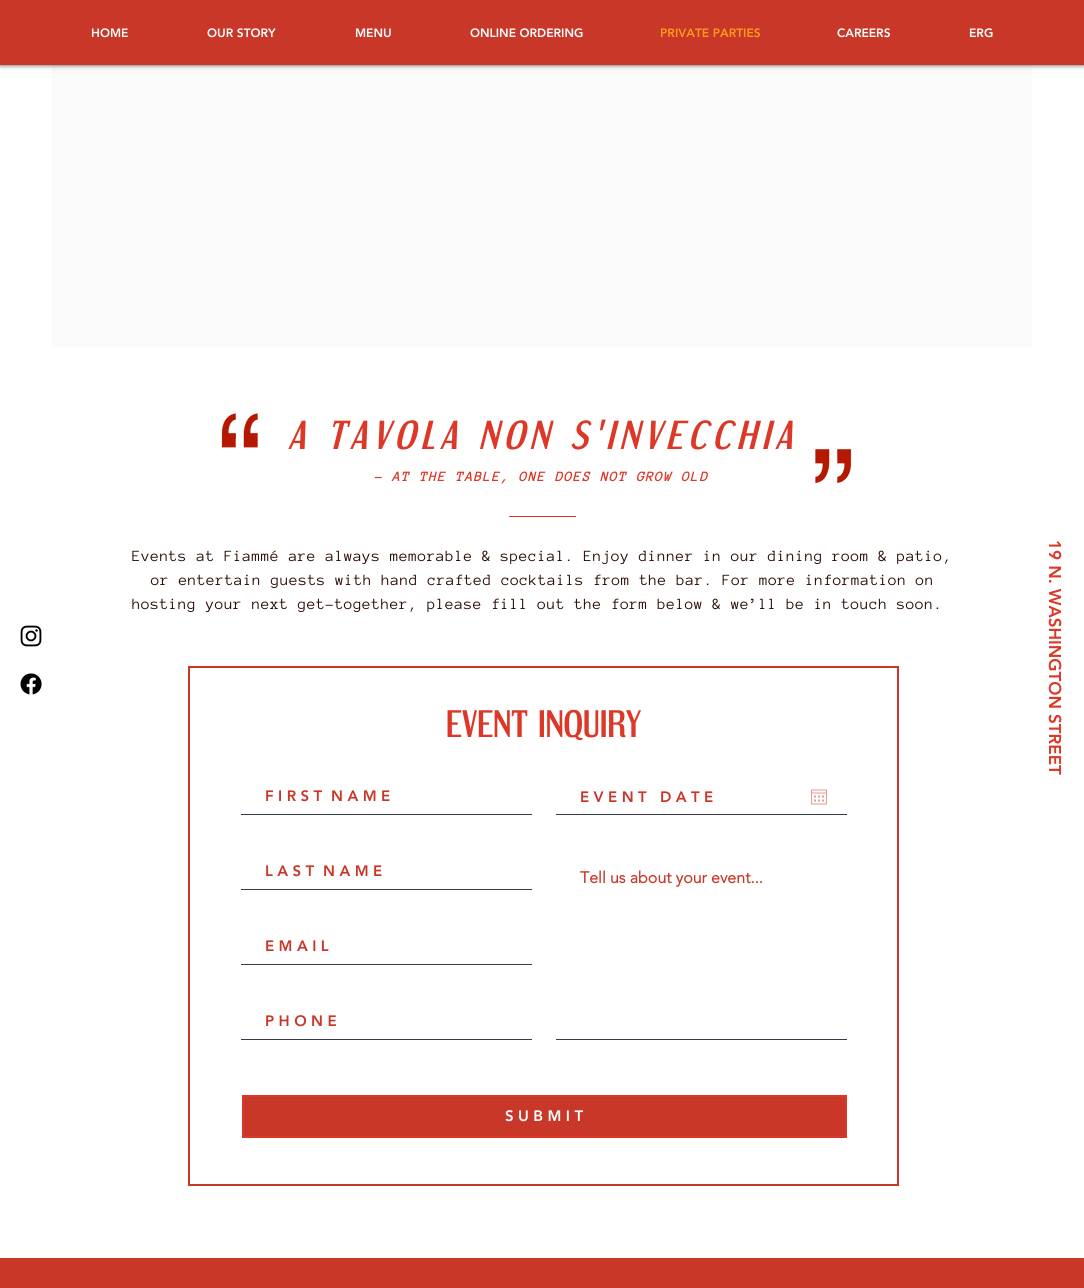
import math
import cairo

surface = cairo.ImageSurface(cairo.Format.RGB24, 1084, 1288)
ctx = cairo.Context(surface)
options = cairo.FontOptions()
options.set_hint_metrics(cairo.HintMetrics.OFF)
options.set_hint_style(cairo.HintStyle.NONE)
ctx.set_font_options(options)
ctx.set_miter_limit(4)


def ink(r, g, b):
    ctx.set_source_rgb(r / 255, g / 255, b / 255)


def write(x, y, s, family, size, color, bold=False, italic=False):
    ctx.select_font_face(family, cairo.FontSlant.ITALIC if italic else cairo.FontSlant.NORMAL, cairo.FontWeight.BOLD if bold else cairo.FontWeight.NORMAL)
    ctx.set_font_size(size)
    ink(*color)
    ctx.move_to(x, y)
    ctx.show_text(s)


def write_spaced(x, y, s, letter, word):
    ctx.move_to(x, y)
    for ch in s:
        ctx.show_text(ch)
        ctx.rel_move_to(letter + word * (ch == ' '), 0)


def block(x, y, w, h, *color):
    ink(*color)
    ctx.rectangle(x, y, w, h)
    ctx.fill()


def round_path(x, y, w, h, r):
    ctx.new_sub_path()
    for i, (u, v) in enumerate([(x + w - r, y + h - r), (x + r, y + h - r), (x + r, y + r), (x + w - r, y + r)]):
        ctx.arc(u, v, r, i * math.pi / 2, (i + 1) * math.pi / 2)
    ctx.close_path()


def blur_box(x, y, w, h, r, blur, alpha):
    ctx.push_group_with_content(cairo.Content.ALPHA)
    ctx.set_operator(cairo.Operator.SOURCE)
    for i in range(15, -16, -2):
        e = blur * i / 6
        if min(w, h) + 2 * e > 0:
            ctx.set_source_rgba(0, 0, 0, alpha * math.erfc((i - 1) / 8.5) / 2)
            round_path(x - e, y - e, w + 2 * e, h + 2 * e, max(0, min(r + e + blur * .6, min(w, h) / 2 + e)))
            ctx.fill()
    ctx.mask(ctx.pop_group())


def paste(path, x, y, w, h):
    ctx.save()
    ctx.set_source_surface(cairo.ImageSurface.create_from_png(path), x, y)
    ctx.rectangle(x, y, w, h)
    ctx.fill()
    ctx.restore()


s1 = dict(family="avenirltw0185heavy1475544 Black", size=12, color=(255, 255, 255))
s2 = dict(family="avenirltw0185heavy1475544 Black", size=12, color=(255, 153, 27))
s3 = dict(family="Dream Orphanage", size=35, color=(220, 55, 39))
s4 = dict(family="avenirltw0185heavy1475544 Black", size=15, color=(200, 55, 39))
s5 = dict(family="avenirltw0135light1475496", size=16, color=(200, 55, 39), bold=True)
s6 = dict(family="avenirltw0185heavy1475544 Black", size=15, color=(255, 255, 255))
s7 = dict(family="avenirltw0185heavy1475544 Black", size=17, color=(220, 55, 39))

ink(255, 255, 255)
ctx.paint()
block(52, 65, 980, 282, 250, 250, 250)
ink(0, 0, 0)
blur_box(0, 0, 1084, 65, 0, 2.5, 0.7)
block(0, 0, 1084, 65, 200, 55, 39)
write(91, 37, "HOME", **s1)
write(207, 37, "OUR STORY", **s1)
write(355, 37, "MENU", **s1)
write(470, 37, "ONLINE ORDERING", **s1)
write(660, 37, "PRIVATE PARTIES", **s2)
write(837, 37, "CAREERS", **s1)
write(969, 37, "ERG", **s1)
paste("pic1.png", 20, 625, 22, 22)
paste("pic2.png", 20, 673, 22, 22)
paste("pic3.png", 221, 413, 37, 35)
ctx.select_font_face("Dream Orphanage", cairo.FontSlant.ITALIC)
ctx.set_font_size(37)
ink(220, 55, 39)
write_spaced(288, 449, "A TAVOLA NON S'INVECCHIA", 5.55, 0)
ctx.select_font_face("Anonymous Pro", cairo.FontSlant.ITALIC, cairo.FontWeight.BOLD)
ctx.set_font_size(14)
write_spaced(374, 481, "- AT THE TABLE, ONE DOES NOT GROW OLD", 1.4, 0)
paste("pic4.png", 815, 449, 37, 35)
block(509, 516, 67, 1, 220, 55, 39)
ctx.select_font_face("Anonymous Pro")
ctx.set_font_size(16)
ink(43, 13, 4)
write_spaced(132, 561, "Events at Fiammé are always memorable & special. Enjoy dinner in our dining room & patio,", 0.48, 0)
write_spaced(151, 585, "or entertain guests with hand crafted cocktails from the bar. For more information on", 0.48, 0)
write_spaced(132, 609, "hosting your next get-together, please fill out the form below & we’ll be in touch soon.", 0.48, 0)
ctx.rectangle(189, 667, 709, 518)
ink(200, 55, 39)
ctx.stroke()
write(446, 737, "EVENT INQUIRY", **s3)
block(241, 814, 291, 1, 55, 59, 77)
write(265, 801, "F I R S T  N A M E", **s4)
block(556, 814, 291, 1, 55, 59, 77)
write(580, 802, "E V E N T   D A T E", **s4)
paste("pic5.png", 811, 789, 16, 16)
block(241, 889, 291, 1, 55, 59, 77)
write(265, 876, "L A S T  N A M E", **s4)
block(556, 1039, 291, 1, 55, 59, 77)
write(580, 883, "Tell us about your event...", **s5)
block(241, 964, 291, 1, 55, 59, 77)
write(265, 951, "E M A I L", **s4)
block(241, 1039, 291, 1, 55, 59, 77)
write(265, 1026, "P H O N E", **s4)
ctx.rectangle(243, 1096, 603, 41)
ctx.fill_preserve()
ink(220, 55, 39)
ctx.stroke()
write(505, 1121, "S U B M I T", **s6)
ctx.save()
ctx.translate(1049, 540)
ctx.rotate(90 * math.pi / 180)
write(0, 0, "19 N. WASHINGTON STREET", **s7)
ctx.restore()
block(0, 1258, 1084, 30, 200, 55, 39)
surface.write_to_png("screenshot.png")
